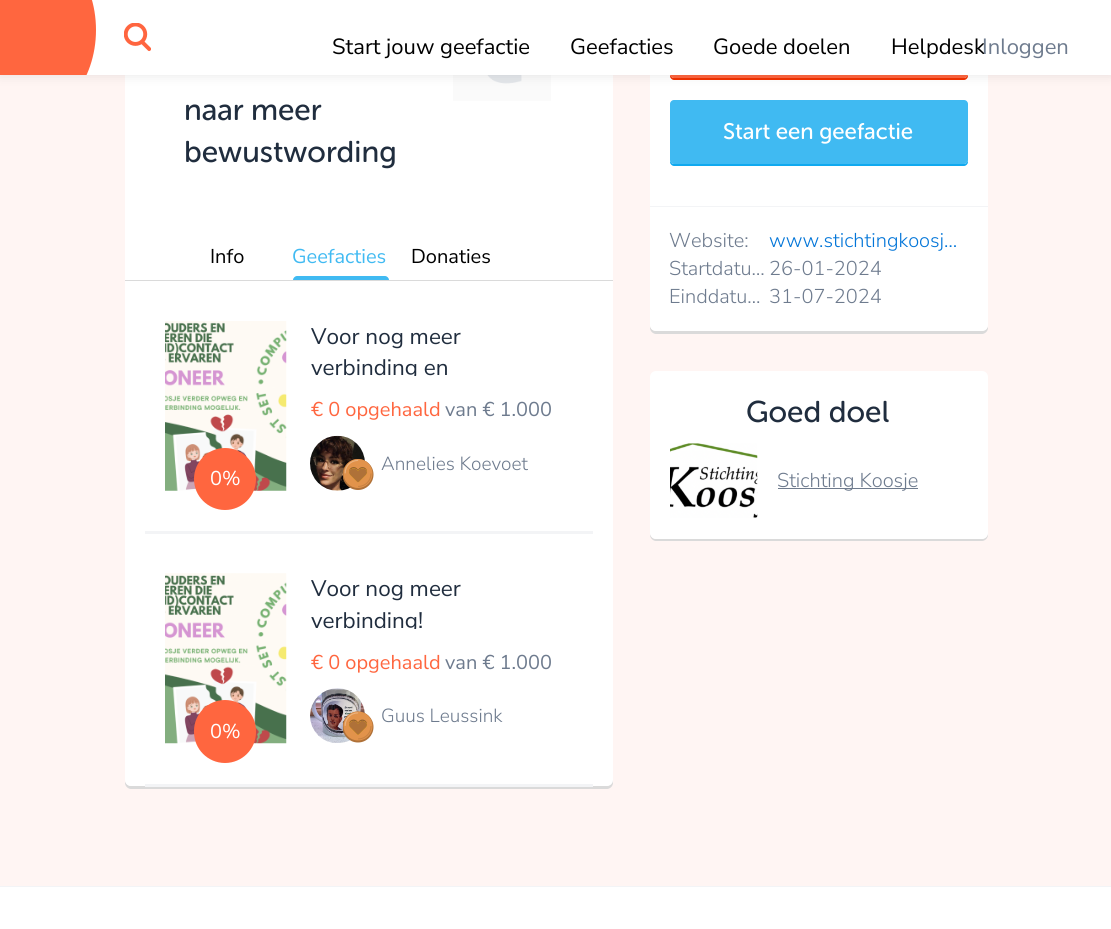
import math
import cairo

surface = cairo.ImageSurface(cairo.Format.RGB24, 1111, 929)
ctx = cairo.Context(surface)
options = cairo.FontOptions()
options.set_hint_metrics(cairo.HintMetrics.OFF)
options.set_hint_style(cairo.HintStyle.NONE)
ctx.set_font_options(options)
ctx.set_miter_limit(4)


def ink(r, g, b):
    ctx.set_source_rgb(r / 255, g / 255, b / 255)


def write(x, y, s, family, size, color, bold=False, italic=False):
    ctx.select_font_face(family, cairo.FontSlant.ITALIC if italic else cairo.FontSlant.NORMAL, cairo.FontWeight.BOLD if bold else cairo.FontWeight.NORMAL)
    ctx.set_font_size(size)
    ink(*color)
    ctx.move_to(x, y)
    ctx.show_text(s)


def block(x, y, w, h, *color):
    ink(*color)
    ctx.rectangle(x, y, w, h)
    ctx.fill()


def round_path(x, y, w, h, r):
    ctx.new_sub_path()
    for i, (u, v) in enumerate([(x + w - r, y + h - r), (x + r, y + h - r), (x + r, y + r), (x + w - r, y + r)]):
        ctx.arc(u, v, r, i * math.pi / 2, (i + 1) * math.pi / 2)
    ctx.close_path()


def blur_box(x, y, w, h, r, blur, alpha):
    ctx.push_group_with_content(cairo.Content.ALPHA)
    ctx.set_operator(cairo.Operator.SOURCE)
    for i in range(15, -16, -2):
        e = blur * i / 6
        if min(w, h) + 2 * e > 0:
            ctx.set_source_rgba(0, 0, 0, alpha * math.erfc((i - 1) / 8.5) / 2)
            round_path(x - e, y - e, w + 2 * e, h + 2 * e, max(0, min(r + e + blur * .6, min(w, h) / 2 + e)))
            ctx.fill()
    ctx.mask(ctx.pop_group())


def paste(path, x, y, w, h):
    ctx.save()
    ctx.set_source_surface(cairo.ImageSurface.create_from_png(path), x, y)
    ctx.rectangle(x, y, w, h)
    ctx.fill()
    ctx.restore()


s1 = dict(family="Nunito Sans", size=22, color=(0, 0, 0))
s2 = dict(family="Nunito Sans", size=22, color=(110, 123, 142))
s3 = dict(family="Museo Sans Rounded", size=30, color=(32, 45, 62))
s4 = dict(family="Nunito Sans", size=20, color=(0, 0, 0))
s5 = dict(family="Nunito Sans", size=20, color=(64, 186, 242))
s6 = dict(family="Nunito Sans", size=22.5, color=(32, 45, 62))
s7 = dict(family="Nunito Sans", size=20, color=(255, 102, 63))
s8 = dict(family="Nunito Sans", size=20, color=(110, 123, 142))
s9 = dict(family="Nunito Sans Light", size=19, color=(110, 123, 142))
s10 = dict(family="Nunito Sans", size=20, color=(255, 255, 255))
s11 = dict(family="Museo Sans Rounded", size=22.5, color=(255, 255, 255))
s12 = dict(family="Nunito Sans Light", size=20, color=(110, 123, 142))
s13 = dict(family="Nunito Sans Light", size=20, color=(2, 117, 216))

ink(255, 255, 255)
ctx.paint()
block(0, 75, 1111, 811, 255, 245, 243)
ink(218, 218, 218)
ctx.new_path()
ctx.move_to(125, 780)
ctx.line_to(125, 783)
ctx.curve_to(125, 786, 128, 789, 131, 789)
ctx.line_to(607, 789)
ctx.curve_to(610, 789, 613, 786, 613, 783)
ctx.line_to(613, -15)
ctx.line_to(612, -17)
ctx.line_to(612, 780)
ctx.curve_to(612, 783, 610, 786, 606, 786)
ctx.line_to(131, 786)
ctx.curve_to(128, 786, 125, 783, 125, 780)
ctx.close_path()
ctx.fill()
ink(255, 255, 255)
round_path(125, -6, 488, 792, 6)
ctx.fill()
paste("pic2.png", 453, 75, 98, 26)
block(650, 75, 338, 131, 255, 255, 255)
ink(242, 49, 0)
ctx.new_path()
ctx.move_to(670, 74)
ctx.line_to(670, 76)
ctx.curve_to(670, 78, 672, 80, 674, 80)
ctx.line_to(964, 80)
ctx.curve_to(966, 80, 968, 78, 968, 76)
ctx.line_to(968, 22)
ctx.line_to(968, 20)
ctx.line_to(968, 74)
ctx.curve_to(968, 76, 966, 78, 964, 78)
ctx.line_to(674, 78)
ctx.curve_to(672, 78, 670, 76, 670, 74)
ctx.close_path()
ctx.fill()
ink(255, 102, 63)
round_path(670, 15, 298, 63, 4)
ctx.fill()
ink(0, 0, 0)
blur_box(0, 0, 1111, 75, 0, 6, 0.1)
block(86, 0, 1025, 75, 255, 255, 255)
ctx.save()
ctx.rectangle(0, 0, 1111, 75)
ctx.clip()
ink(255, 102, 63)
ctx.new_path()
ctx.move_to(21, -62.5)
ctx.curve_to(62.5, -62.5, 96, -21, 96, 30)
ctx.curve_to(96, 81, 62.5, 122.5, 21, 122.5)
ctx.curve_to(-20.5, 122.5, -54, 81, -54, 30)
ctx.curve_to(-54, -21, -20.5, -62.5, 21, -62.5)
ctx.close_path()
ctx.fill()
ctx.restore()
paste("pic1.png", 124, 23, 27, 29)
write(332, 54, "Start jouw geefactie", **s1)
write(570, 54, "Geefacties", **s1)
write(713, 54, "Goede doelen", **s1)
write(891, 54, "Helpdesk", **s1)
write(982, 54, "Inloggen", **s2)
write(184, 120, "naar meer", **s3)
write(184, 162, "bewustwording", **s3)
block(125, 280, 488, 1, 218, 218, 218)
write(210, 263, "Info", **s4)
write(292, 263, "Geefacties", **s5)
ctx.new_path()
ctx.move_to(297, 276)
ctx.line_to(385, 276)
ctx.curve_to(387, 276, 389, 278, 389, 280)
ctx.line_to(293, 280)
ctx.curve_to(293, 278, 295, 276, 297, 276)
ctx.close_path()
ctx.fill()
write(411, 263, "Donaties", **s4)
block(145, 531, 448, 3, 243, 244, 246)
write(311, 344, "Voor nog meer", **s6)
ctx.save()
ctx.rectangle(310, 321, 263, 55)
ctx.clip()
write(311, 375, "verbinding en", **s6)
ctx.restore()
write(311, 416, "€ 0 opgehaald", **s7)
write(445, 416, "van € 1.000", **s8)
paste("pic3.png", 310, 435, 55, 56)
paste("pic4.png", 343, 459, 31, 31)
write(381, 470, "Annelies Koevoet", **s9)
paste("pic5.png", 165, 321, 122, 170)
ink(255, 102, 63)
ctx.arc(225, 479, 31, 0, 2 * math.pi)
ctx.fill()
write(210, 485, "0%", **s10)
block(145, 784, 448, 3, 243, 244, 246)
write(311, 596, "Voor nog meer", **s6)
ctx.save()
ctx.rectangle(310, 574, 263, 55)
ctx.clip()
write(311, 628, "verbinding!", **s6)
ctx.restore()
write(311, 669, "€ 0 opgehaald", **s7)
write(445, 669, "van € 1.000", **s8)
paste("pic6.png", 310, 688, 55, 55)
paste("pic7.png", 343, 711, 31, 32)
write(381, 722, "Guus Leussink", **s9)
paste("pic8.png", 165, 573, 122, 171)
ink(255, 102, 63)
round_path(194, 700, 62, 63, 31)
ctx.fill()
write(210, 738, "0%", **s10)
ink(16, 169, 239)
ctx.new_path()
ctx.move_to(670, 160)
ctx.line_to(670, 162)
ctx.curve_to(670, 164, 672, 166, 674, 166)
ctx.line_to(964, 166)
ctx.curve_to(966, 166, 968, 164, 968, 162)
ctx.line_to(968, 107)
ctx.line_to(968, 105)
ctx.line_to(968, 160)
ctx.curve_to(968, 162, 966, 164, 964, 164)
ctx.line_to(674, 164)
ctx.curve_to(672, 164, 670, 162, 670, 160)
ctx.close_path()
ctx.fill()
ink(64, 186, 242)
round_path(670, 100, 298, 64, 4)
ctx.fill()
write(723, 139, "Start een geefactie", **s11)
ink(218, 218, 218)
ctx.new_path()
ctx.move_to(650, 325)
ctx.line_to(650, 328)
ctx.curve_to(650, 331, 653, 334, 656, 334)
ctx.line_to(982, 334)
ctx.curve_to(985, 334, 988, 331, 988, 328)
ctx.line_to(988, 209)
ctx.line_to(988, 325)
ctx.curve_to(988, 328, 985, 331, 981, 331)
ctx.line_to(656, 331)
ctx.curve_to(653, 331, 650, 328, 650, 325)
ctx.close_path()
ctx.fill()
ink(255, 255, 255)
ctx.new_path()
ctx.move_to(650, 206)
ctx.line_to(988, 206)
ctx.line_to(988, 325)
ctx.curve_to(988, 328.5, 985.5, 331, 982, 331)
ctx.line_to(656, 331)
ctx.curve_to(652.5, 331, 650, 328.5, 650, 325)
ctx.close_path()
ctx.fill()
block(650, 206, 338, 1, 243, 244, 246)
write(669, 247, "Website:", **s12)
write(769, 247, "www.stichtingkoosj…", **s13)
write(669, 275, "Startdatu…", **s12)
write(769, 275, "26-01-2024", **s12)
write(669, 303, "Einddatu…", **s12)
write(769, 303, "31-07-2024", **s12)
ink(218, 218, 218)
ctx.new_path()
ctx.move_to(650, 532)
ctx.line_to(650, 535)
ctx.curve_to(650, 538, 653, 541, 656, 541)
ctx.line_to(982, 541)
ctx.curve_to(985, 541, 988, 538, 988, 535)
ctx.line_to(988, 380)
ctx.line_to(988, 378)
ctx.line_to(988, 532)
ctx.curve_to(988, 536, 985, 539, 981, 539)
ctx.line_to(656, 539)
ctx.curve_to(653, 539, 650, 536, 650, 532)
ctx.close_path()
ctx.fill()
ink(255, 255, 255)
round_path(650, 371, 338, 168, 6)
ctx.fill()
write(746, 422, "Goed doel", **s3)
paste("pic9.png", 670, 443, 88, 75)
block(778, 488, 140, 1, 111, 123, 141)
write(777, 487, "Stichting Koosje", **s12)
block(0, 886, 1111, 1, 243, 244, 246)
surface.write_to_png("screenshot.png")
